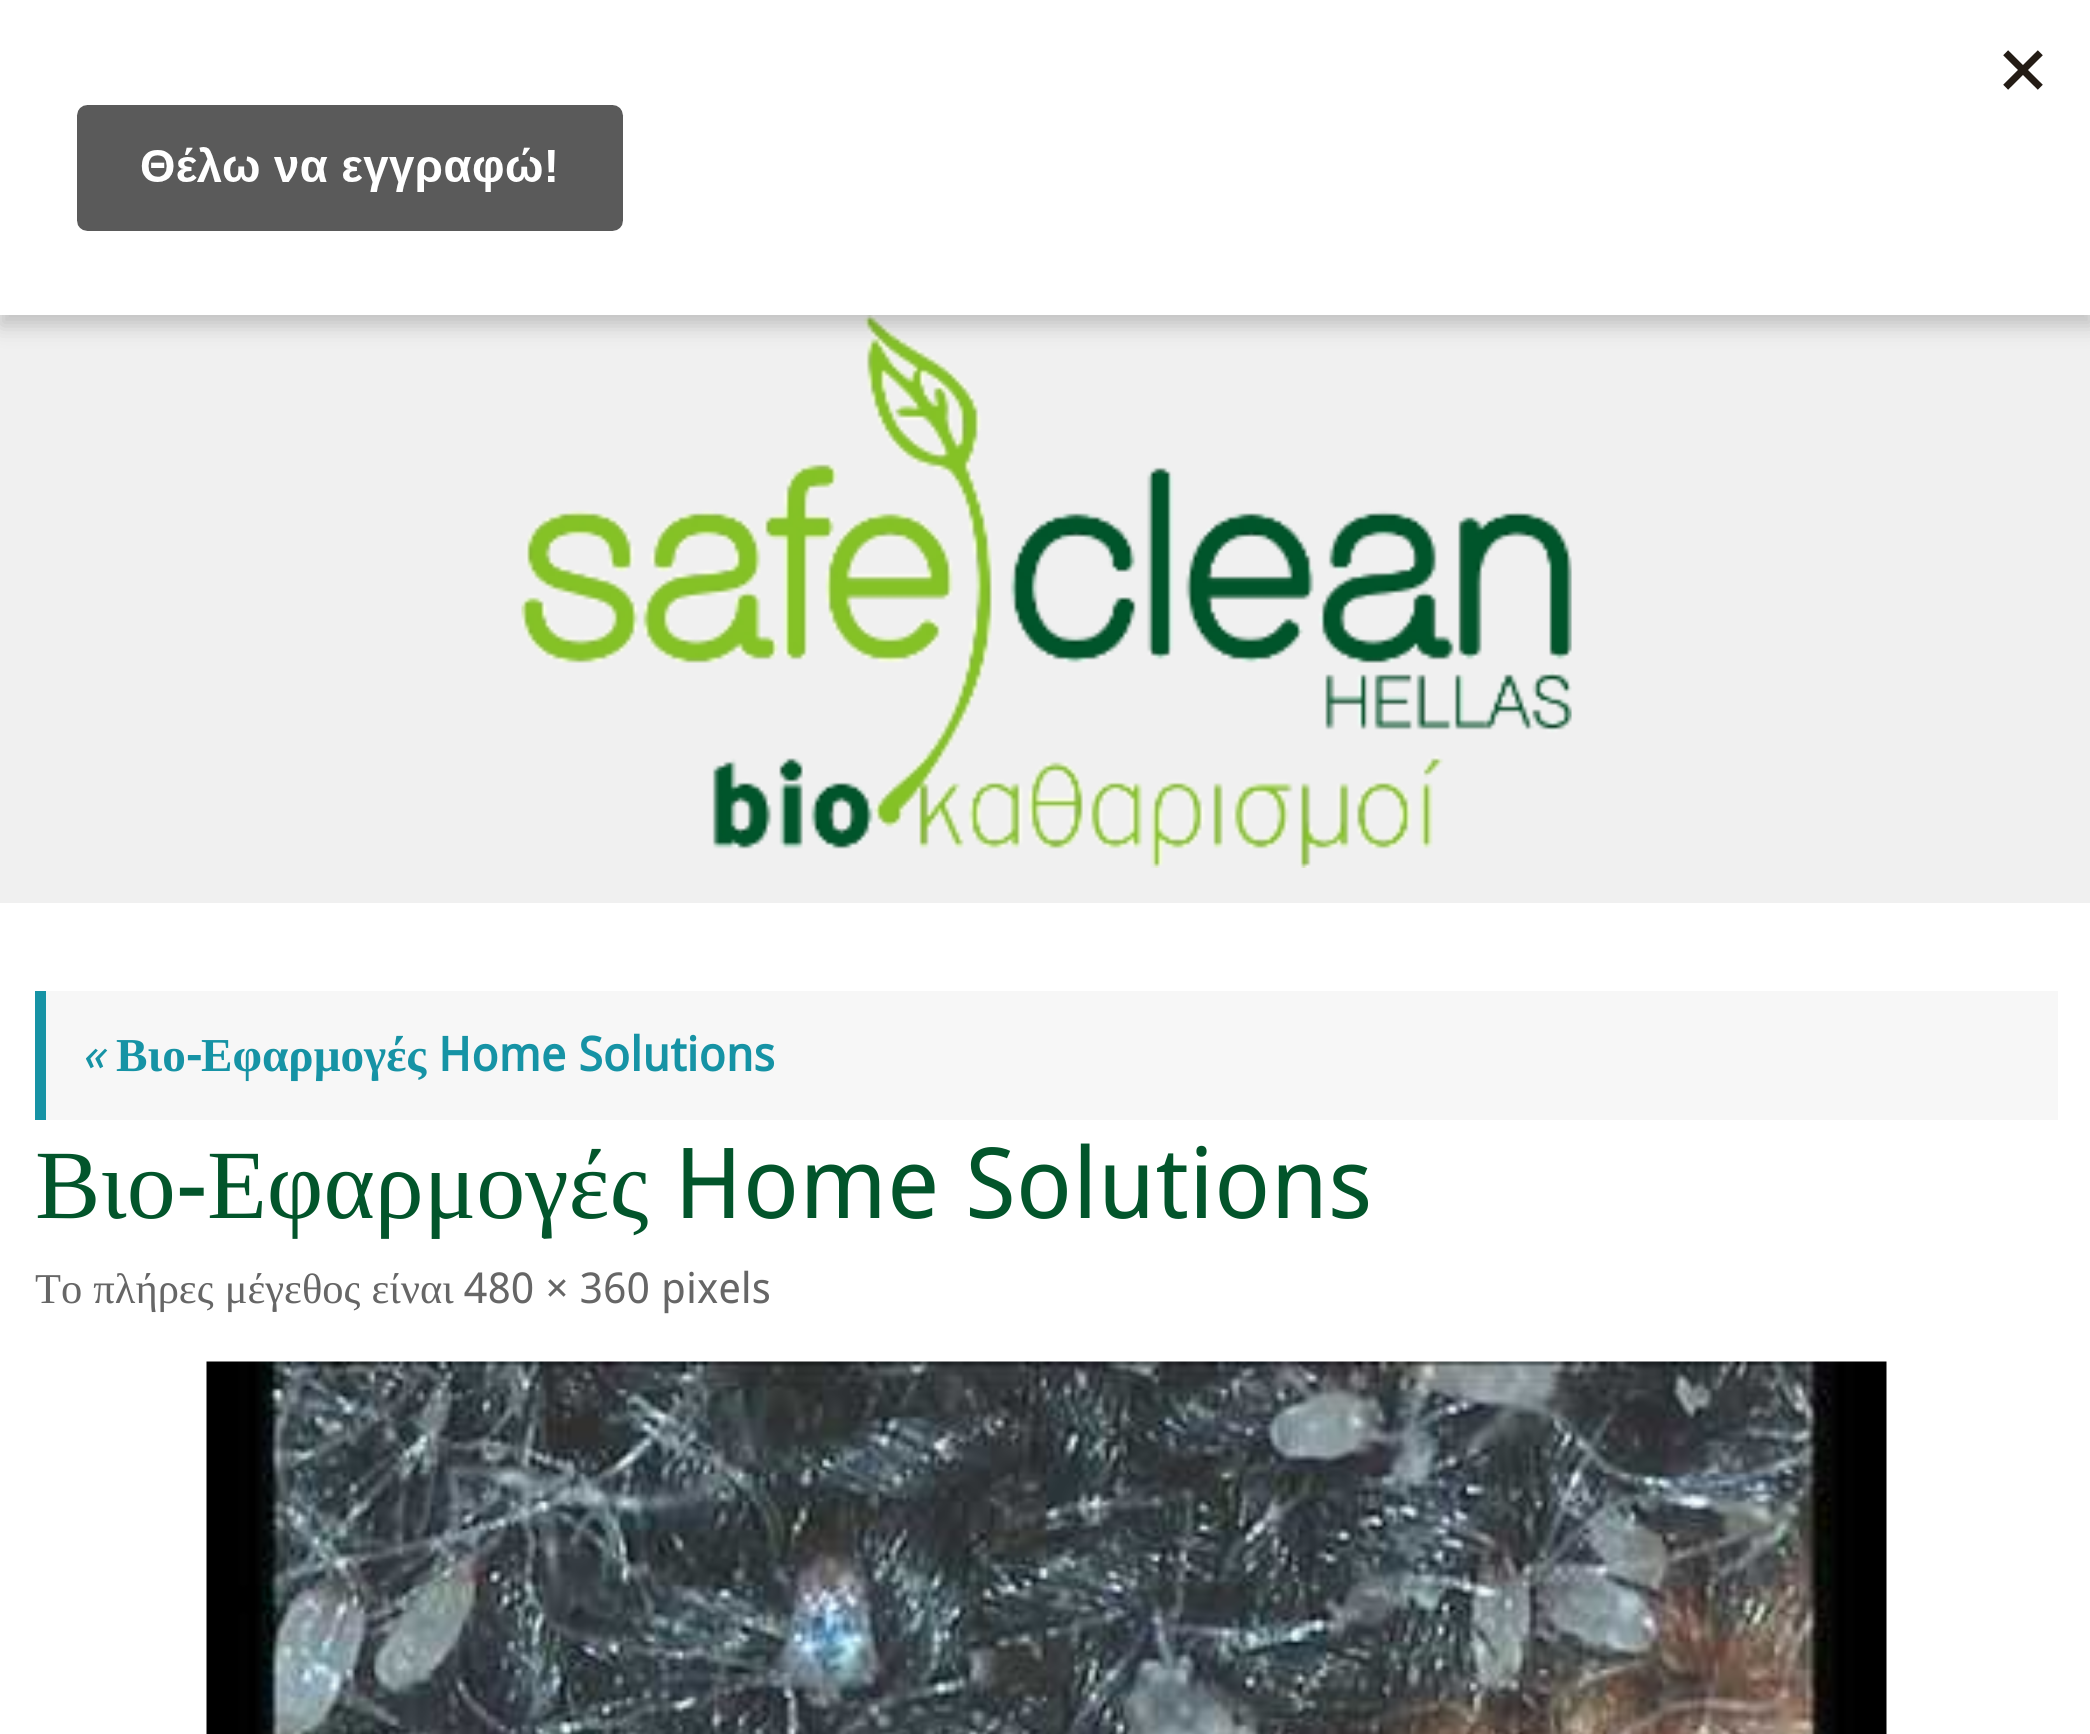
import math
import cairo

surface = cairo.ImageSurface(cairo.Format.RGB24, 2090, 1734)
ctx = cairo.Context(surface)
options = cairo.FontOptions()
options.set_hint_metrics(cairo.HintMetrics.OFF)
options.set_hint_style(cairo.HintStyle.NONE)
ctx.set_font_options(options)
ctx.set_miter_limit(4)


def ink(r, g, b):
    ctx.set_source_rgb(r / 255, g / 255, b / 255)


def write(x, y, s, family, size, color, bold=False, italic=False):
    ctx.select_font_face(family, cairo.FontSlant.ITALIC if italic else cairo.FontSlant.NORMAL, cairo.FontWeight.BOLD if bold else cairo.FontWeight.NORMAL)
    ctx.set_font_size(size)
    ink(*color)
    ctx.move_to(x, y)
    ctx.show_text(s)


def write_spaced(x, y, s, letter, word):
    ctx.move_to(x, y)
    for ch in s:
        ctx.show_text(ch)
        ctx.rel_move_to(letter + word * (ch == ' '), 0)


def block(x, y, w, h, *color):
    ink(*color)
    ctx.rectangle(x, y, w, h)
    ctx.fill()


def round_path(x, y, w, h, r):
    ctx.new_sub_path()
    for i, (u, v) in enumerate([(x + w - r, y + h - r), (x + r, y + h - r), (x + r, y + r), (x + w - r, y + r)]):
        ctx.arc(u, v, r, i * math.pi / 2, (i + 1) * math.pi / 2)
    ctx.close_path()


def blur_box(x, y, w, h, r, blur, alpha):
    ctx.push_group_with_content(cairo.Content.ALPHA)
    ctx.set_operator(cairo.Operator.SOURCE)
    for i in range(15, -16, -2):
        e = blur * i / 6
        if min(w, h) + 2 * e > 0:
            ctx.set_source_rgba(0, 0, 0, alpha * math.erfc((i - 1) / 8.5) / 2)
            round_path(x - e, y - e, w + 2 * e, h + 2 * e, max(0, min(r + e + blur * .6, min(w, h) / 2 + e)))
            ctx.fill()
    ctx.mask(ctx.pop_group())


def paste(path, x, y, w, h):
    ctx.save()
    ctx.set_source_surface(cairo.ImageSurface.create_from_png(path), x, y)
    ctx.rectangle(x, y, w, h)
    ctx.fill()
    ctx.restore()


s1 = dict(family="Droid Sans", size=47.25, color=(22, 147, 165), italic=True)
s2 = dict(family="Liberation Serif", size=47.25, color=(22, 147, 165), bold=True)
s3 = dict(family="Droid Sans", size=47.25, color=(22, 147, 165), bold=True)
s4 = dict(family="Liberation Serif", size=98, color=(2, 85, 43))
s5 = dict(family="Droid Sans", size=98, color=(2, 85, 43))
s6 = dict(family="Droid Sans", size=42.5, color=(102, 102, 102))

ink(255, 255, 255)
ctx.paint()
block(0, 315, 2090, 588, 240, 240, 240)
paste("pic2.png", 521, 315, 1051, 553)
ink(0, 0, 0)
blur_box(0, 11, 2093, 315, 0, 10.5, 0.2)
block(0, 0, 2090, 315, 255, 255, 255)
paste("pic1.png", 76, 50, 1967, 181)
block(46, 991, 2012, 129, 247, 247, 247)
block(35, 991, 11, 129, 22, 147, 165)
write(81, 1071, "«", **s1)
write(116, 1071, "Βιο", **s2)
write(186, 1071, "-", **s3)
write(201, 1071, "Εφαρμογές", **s2)
write(438, 1071, "Home Solutions", **s3)
write(35, 1218, "Βιο", **s4)
write(176, 1218, "-", **s5)
write(207, 1218, "Εφαρμογές", **s4)
write(674, 1218, "Home Solutions", **s5)
ctx.select_font_face("Liberation Serif")
ctx.set_font_size(42.5)
ink(102, 102, 102)
write_spaced(35, 1303, "Το πλήρες μέγεθος είναι", 0, 0.5)
write(464, 1303, "480 × 360 pixels", **s6)
paste("pic3.png", 206, 1361, 1681, 373)
surface.write_to_png("screenshot.png")
